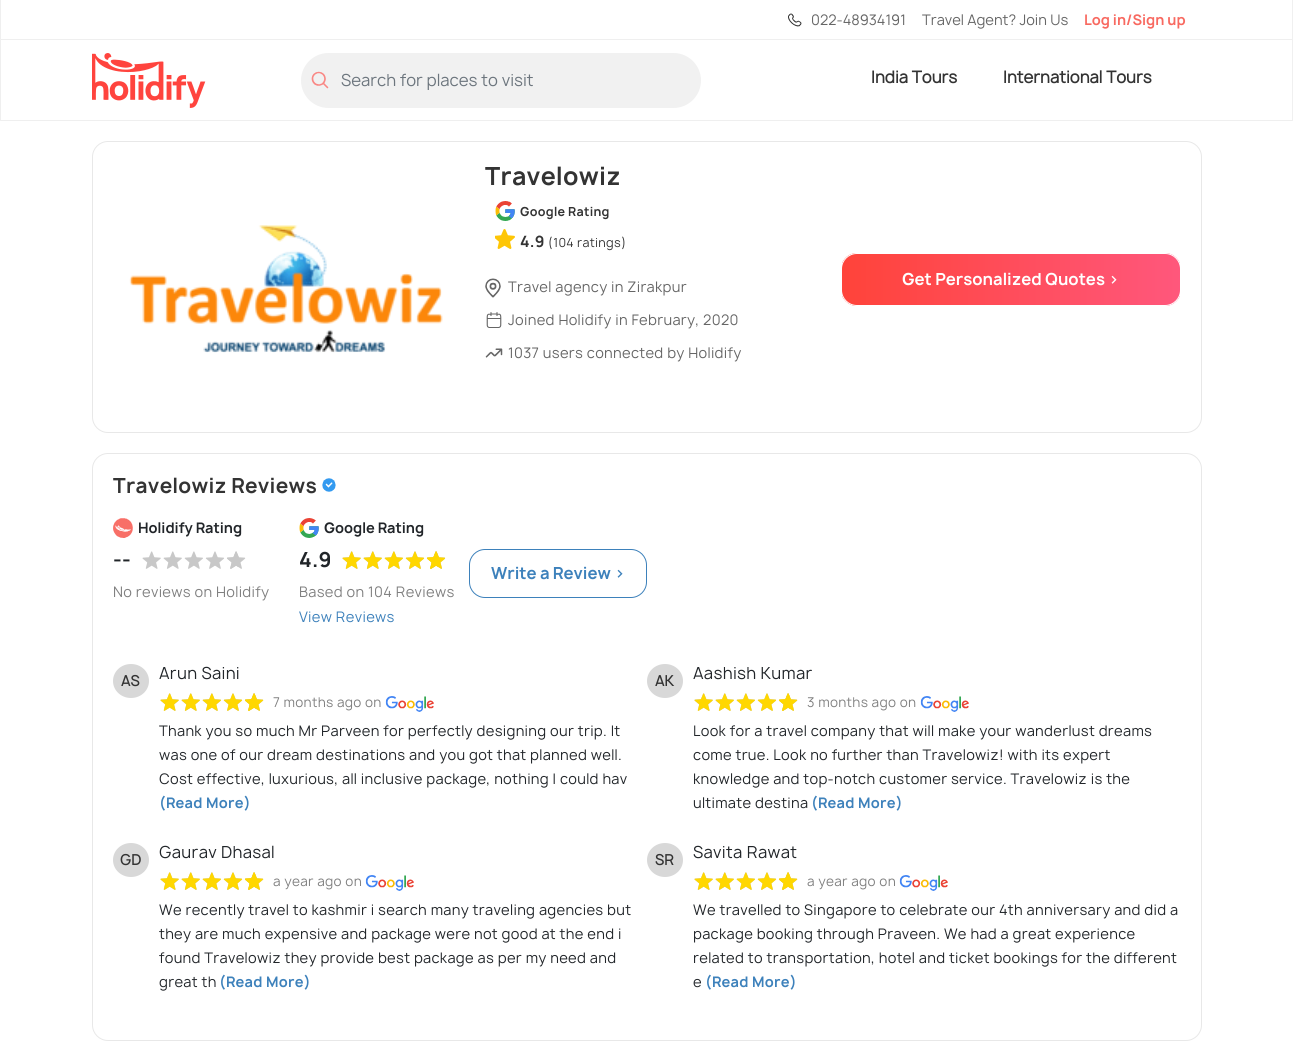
import math
import cairo

surface = cairo.ImageSurface(cairo.Format.RGB24, 1293, 1042)
ctx = cairo.Context(surface)
options = cairo.FontOptions()
options.set_hint_metrics(cairo.HintMetrics.OFF)
options.set_hint_style(cairo.HintStyle.NONE)
ctx.set_font_options(options)
ctx.set_miter_limit(4)


def ink(r, g, b):
    ctx.set_source_rgb(r / 255, g / 255, b / 255)


def write(x, y, s, family, size, color, bold=False, italic=False):
    ctx.select_font_face(family, cairo.FontSlant.ITALIC if italic else cairo.FontSlant.NORMAL, cairo.FontWeight.BOLD if bold else cairo.FontWeight.NORMAL)
    ctx.set_font_size(size)
    ink(*color)
    ctx.move_to(x, y)
    ctx.show_text(s)


def write_spaced(x, y, s, letter, word):
    ctx.move_to(x, y)
    for ch in s:
        ctx.show_text(ch)
        ctx.rel_move_to(letter + word * (ch == ' '), 0)


def round_path(x, y, w, h, r):
    ctx.new_sub_path()
    for i, (u, v) in enumerate([(x + w - r, y + h - r), (x + r, y + h - r), (x + r, y + r), (x + w - r, y + r)]):
        ctx.arc(u, v, r, i * math.pi / 2, (i + 1) * math.pi / 2)
    ctx.close_path()


def paste(path, x, y, w, h):
    ctx.save()
    ctx.set_source_surface(cairo.ImageSurface.create_from_png(path), x, y)
    ctx.rectangle(x, y, w, h)
    ctx.fill()
    ctx.restore()


s1 = dict(family="Manrope", size=14, color=(102, 102, 102))
s2 = dict(family="Manrope", size=14, color=(248, 105, 96), bold=True)
s3 = dict(family="Manrope", size=16, color=(108, 117, 125))
s4 = dict(family="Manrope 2", size=16, color=(51, 51, 51), bold=True)
s5 = dict(family="Manrope", size=16, color=(255, 255, 255), bold=True)
s6 = dict(family="Manrope", size=14, color=(33, 37, 41), bold=True)
s7 = dict(family="Manrope", size=16, color=(61, 129, 187), bold=True)

ink(255, 255, 255)
ctx.paint()
ink(240, 240, 240)
ctx.new_path()
ctx.move_to(1293, 0)
ctx.line_to(1293, 40)
ctx.line_to(1292, 39)
ctx.line_to(1292, 0)
ctx.close_path()
ctx.fill()
ctx.set_source_rgba(0.792, 0.792, 0.792, 0.29)
ctx.new_path()
ctx.move_to(1293, 40)
ctx.line_to(0, 40)
ctx.line_to(1, 39)
ctx.line_to(1292, 39)
ctx.close_path()
ctx.fill()
ctx.new_path()
ctx.move_to(0, 40)
ctx.line_to(0, 0)
ctx.line_to(1, 0)
ctx.line_to(1, 39)
ctx.close_path()
ctx.fill()
paste("pic1.png", 788, 13, 14, 14)
write(811, 25, "022-48934191", **s1)
write(922, 25, "Travel Agent? Join Us", **s1)
write(1084, 25, "Log in/Sign up", **s2)
ink(240, 240, 240)
ctx.new_path()
ctx.move_to(1293, 40)
ctx.line_to(1293, 121)
ctx.line_to(1292, 120)
ctx.line_to(1292, 40)
ctx.close_path()
ctx.fill()
ctx.set_source_rgba(0.792, 0.792, 0.792, 0.29)
ctx.new_path()
ctx.move_to(1293, 121)
ctx.line_to(0, 121)
ctx.line_to(1, 120)
ctx.line_to(1292, 120)
ctx.close_path()
ctx.fill()
ctx.new_path()
ctx.move_to(0, 121)
ctx.line_to(0, 40)
ctx.line_to(1, 40)
ctx.line_to(1, 120)
ctx.close_path()
ctx.fill()
paste("pic2.png", 92, 53, 114, 55)
ink(241, 241, 241)
round_path(301, 53, 400, 55, 27.5)
ctx.fill()
paste("pic3.png", 311, 71, 18, 18)
write(341, 86, "Search for places to visit", **s3)
write(871, 83, "India Tours", **s4)
write(1003, 83, "International Tours", **s4)
round_path(92.5, 141.5, 1109, 291, 15.5)
ink(232, 232, 232)
ctx.set_line_width(1)
ctx.stroke()
paste("pic4.png", 129, 225, 314, 128)
ctx.select_font_face("Manrope", cairo.FontSlant.NORMAL, cairo.FontWeight.BOLD)
ctx.set_font_size(24)
ink(51, 51, 51)
write_spaced(485, 185, "Travelowiz", 0.3, 0)
paste("pic5.png", 495, 201, 20, 20)
ctx.set_font_size(12)
write_spaced(520, 216, "Google Rating", 0.3, 0)
paste("pic6.png", 495, 229, 20, 20)
ctx.set_font_size(15)
write_spaced(520, 247, "4.9", 0.3, 0)
ctx.select_font_face("Manrope")
ctx.set_font_size(12)
write_spaced(548, 247, "(104 ratings)", 0.3, 0)
paste("pic7.png", 485, 278, 16, 20)
ctx.set_font_size(14)
ink(102, 102, 102)
write_spaced(508, 292, "Travel agency in Zirakpur", 0.3, 0)
paste("pic8.png", 486, 312, 16, 16)
write_spaced(508, 325, "Joined Holidify in February, 2020", 0.3, 0)
paste("pic9.png", 485, 348, 18, 10)
write_spaced(508, 358, "1037 users connected by Holidify", 0.3, 0)
ctx.save()
round_path(841, 253, 340, 53, 16)
ctx.clip()
gradient = cairo.LinearGradient(842, 280, 1180, 280)
gradient.add_color_stop_rgba(0, 1, 0.263, 0.227, 1)
gradient.add_color_stop_rgba(1, 1, 0.341, 0.486, 1)
ctx.set_source(gradient)
ctx.rectangle(842, 253, 338, 53)
ctx.fill()
ctx.restore()
round_path(841.5, 253.5, 339, 52, 15.5)
ink(255, 255, 255)
ctx.stroke()
write(902, 285, "Get Personalized Quotes >", **s5)
round_path(92.5, 453.5, 1109, 587, 15.5)
ink(232, 232, 232)
ctx.stroke()
ctx.set_font_size(20)
ink(51, 51, 51)
write_spaced(113, 493, "Travelowiz Reviews", 0.3, 0)
paste("pic10.png", 322, 478, 14, 14)
paste("pic11.png", 113, 518, 20, 20)
write(138, 533, "Holidify Rating", **s6)
ctx.set_font_size(20)
write_spaced(113, 567, "--", 0.3, 0)
paste("pic12.png", 142, 551, 104, 18)
ctx.select_font_face("Manrope")
ctx.set_font_size(14)
ink(128, 128, 128)
write_spaced(113, 597, "No reviews on Holidify", 0.3, 0)
paste("pic13.png", 299, 518, 20, 20)
write(324, 533, "Google Rating", **s6)
ctx.set_font_size(20)
write_spaced(299, 567, "4.9", 0.3, 0)
paste("pic12.png", 342, 551, 104, 18)
paste("pic14.png", 342, 551, 103, 18)
ctx.select_font_face("Manrope")
ctx.set_font_size(14)
ink(128, 128, 128)
write_spaced(299, 597, "Based on 104 Reviews", 0.3, 0)
ink(61, 129, 187)
write_spaced(299, 622, "View Reviews", 0.3, 0)
round_path(469.5, 549.5, 177, 48, 15.5)
ctx.stroke()
write(491, 579, "Write a Review >", **s7)
ink(216, 216, 216)
ctx.new_path()
ctx.move_to(131, 664)
ctx.curve_to(141, 664, 149, 671.5, 149, 681)
ctx.curve_to(149, 690.5, 141, 698, 131, 698)
ctx.curve_to(121, 698, 113, 690.5, 113, 681)
ctx.curve_to(113, 671.5, 121, 664, 131, 664)
ctx.close_path()
ctx.fill()
ctx.select_font_face("Manrope 2", cairo.FontSlant.NORMAL, cairo.FontWeight.BOLD)
ctx.set_font_size(14)
ink(51, 51, 51)
write_spaced(121, 686, "AS", 0.3, 0)
ctx.select_font_face("Manrope")
ctx.set_font_size(16)
ink(33, 37, 41)
write_spaced(159, 679, "Arun Saini", 0.3, 0)
paste("pic12.png", 160, 693, 104, 18)
paste("pic15.png", 160, 693, 104, 18)
ctx.set_font_size(13)
ink(128, 128, 128)
write_spaced(273, 707, "7 months ago on", 0.3, 0)
paste("pic16.png", 385, 696, 49, 16)
ctx.set_font_size(14)
ink(33, 37, 41)
write_spaced(159, 736, "Thank you so much Mr Parveen for perfectly designing our trip. It", 0.3, 0)
write_spaced(159, 760, "was one of our dream destinations and you got that planned well.", 0.3, 0)
write_spaced(159, 784, "Cost effective, luxurious, all inclusive package, nothing I could hav", 0.3, 0)
ctx.select_font_face("Manrope", cairo.FontSlant.NORMAL, cairo.FontWeight.BOLD)
ink(61, 129, 187)
write_spaced(159, 808, "(Read More)", 0.3, 0)
ink(216, 216, 216)
ctx.new_path()
ctx.move_to(665, 664)
ctx.curve_to(675, 664, 683, 671.5, 683, 681)
ctx.curve_to(683, 690.5, 675, 698, 665, 698)
ctx.curve_to(655, 698, 647, 690.5, 647, 681)
ctx.curve_to(647, 671.5, 655, 664, 665, 664)
ctx.close_path()
ctx.fill()
ctx.select_font_face("Manrope 2", cairo.FontSlant.NORMAL, cairo.FontWeight.BOLD)
ink(51, 51, 51)
write_spaced(655, 686, "AK", 0.3, 0)
ctx.select_font_face("Manrope")
ctx.set_font_size(16)
ink(33, 37, 41)
write_spaced(693, 679, "Aashish Kumar", 0.3, 0)
paste("pic12.png", 694, 693, 104, 18)
paste("pic15.png", 694, 693, 104, 18)
ctx.set_font_size(13)
ink(128, 128, 128)
write_spaced(807, 707, "3 months ago on", 0.3, 0)
paste("pic16.png", 920, 696, 49, 16)
ctx.set_font_size(14)
ink(33, 37, 41)
write_spaced(693, 736, "Look for a travel company that will make your wanderlust dreams", 0.3, 0)
write_spaced(693, 760, "come true. Look no further than Travelowiz! with its expert", 0.3, 0)
write_spaced(693, 784, "knowledge and top-notch customer service. Travelowiz is the", 0.3, 0)
write_spaced(693, 808, "ultimate destina", 0.3, 0)
ctx.select_font_face("Manrope", cairo.FontSlant.NORMAL, cairo.FontWeight.BOLD)
ink(61, 129, 187)
write_spaced(811, 808, "(Read More)", 0.3, 0)
ink(216, 216, 216)
ctx.new_path()
ctx.move_to(131, 843)
ctx.curve_to(141, 843, 149, 850.5, 149, 860)
ctx.curve_to(149, 869.5, 141, 877, 131, 877)
ctx.curve_to(121, 877, 113, 869.5, 113, 860)
ctx.curve_to(113, 850.5, 121, 843, 131, 843)
ctx.close_path()
ctx.fill()
ctx.select_font_face("Manrope 2", cairo.FontSlant.NORMAL, cairo.FontWeight.BOLD)
ink(51, 51, 51)
write_spaced(120, 865, "GD", 0.3, 0)
ctx.select_font_face("Manrope")
ctx.set_font_size(16)
ink(33, 37, 41)
write_spaced(159, 858, "Gaurav Dhasal", 0.3, 0)
paste("pic12.png", 160, 872, 104, 18)
paste("pic15.png", 160, 872, 104, 18)
ctx.set_font_size(13)
ink(128, 128, 128)
write_spaced(273, 886, "a year ago on", 0.3, 0)
paste("pic16.png", 365, 875, 49, 16)
ctx.set_font_size(14)
ink(33, 37, 41)
write_spaced(159, 915, "We recently travel to kashmir i search many traveling agencies but", 0.3, 0)
write_spaced(159, 939, "they are much expensive and package were not good at the end i", 0.3, 0)
write_spaced(159, 963, "found Travelowiz they provide best package as per my need and", 0.3, 0)
write_spaced(159, 987, "great th", 0.3, 0)
ctx.select_font_face("Manrope", cairo.FontSlant.NORMAL, cairo.FontWeight.BOLD)
ink(61, 129, 187)
write_spaced(219, 987, "(Read More)", 0.3, 0)
ink(216, 216, 216)
ctx.new_path()
ctx.move_to(665, 843)
ctx.curve_to(675, 843, 683, 850.5, 683, 860)
ctx.curve_to(683, 869.5, 675, 877, 665, 877)
ctx.curve_to(655, 877, 647, 869.5, 647, 860)
ctx.curve_to(647, 850.5, 655, 843, 665, 843)
ctx.close_path()
ctx.fill()
ctx.select_font_face("Manrope 2", cairo.FontSlant.NORMAL, cairo.FontWeight.BOLD)
ink(51, 51, 51)
write_spaced(655, 865, "SR", 0.3, 0)
ctx.select_font_face("Manrope")
ctx.set_font_size(16)
ink(33, 37, 41)
write_spaced(693, 858, "Savita Rawat", 0.3, 0)
paste("pic12.png", 694, 872, 104, 18)
paste("pic15.png", 694, 872, 104, 18)
ctx.set_font_size(13)
ink(128, 128, 128)
write_spaced(807, 886, "a year ago on", 0.3, 0)
paste("pic16.png", 899, 875, 49, 16)
ctx.set_font_size(14)
ink(33, 37, 41)
write_spaced(693, 915, "We travelled to Singapore to celebrate our 4th anniversary and did a", 0.3, 0)
write_spaced(693, 939, "package booking through Praveen. We had a great experience", 0.3, 0)
write_spaced(693, 963, "related to transportation, hotel and ticket bookings for the different", 0.3, 0)
write_spaced(693, 987, "e", 0.3, 0)
ctx.select_font_face("Manrope", cairo.FontSlant.NORMAL, cairo.FontWeight.BOLD)
ink(61, 129, 187)
write_spaced(705, 987, "(Read More)", 0.3, 0)
surface.write_to_png("screenshot.png")
